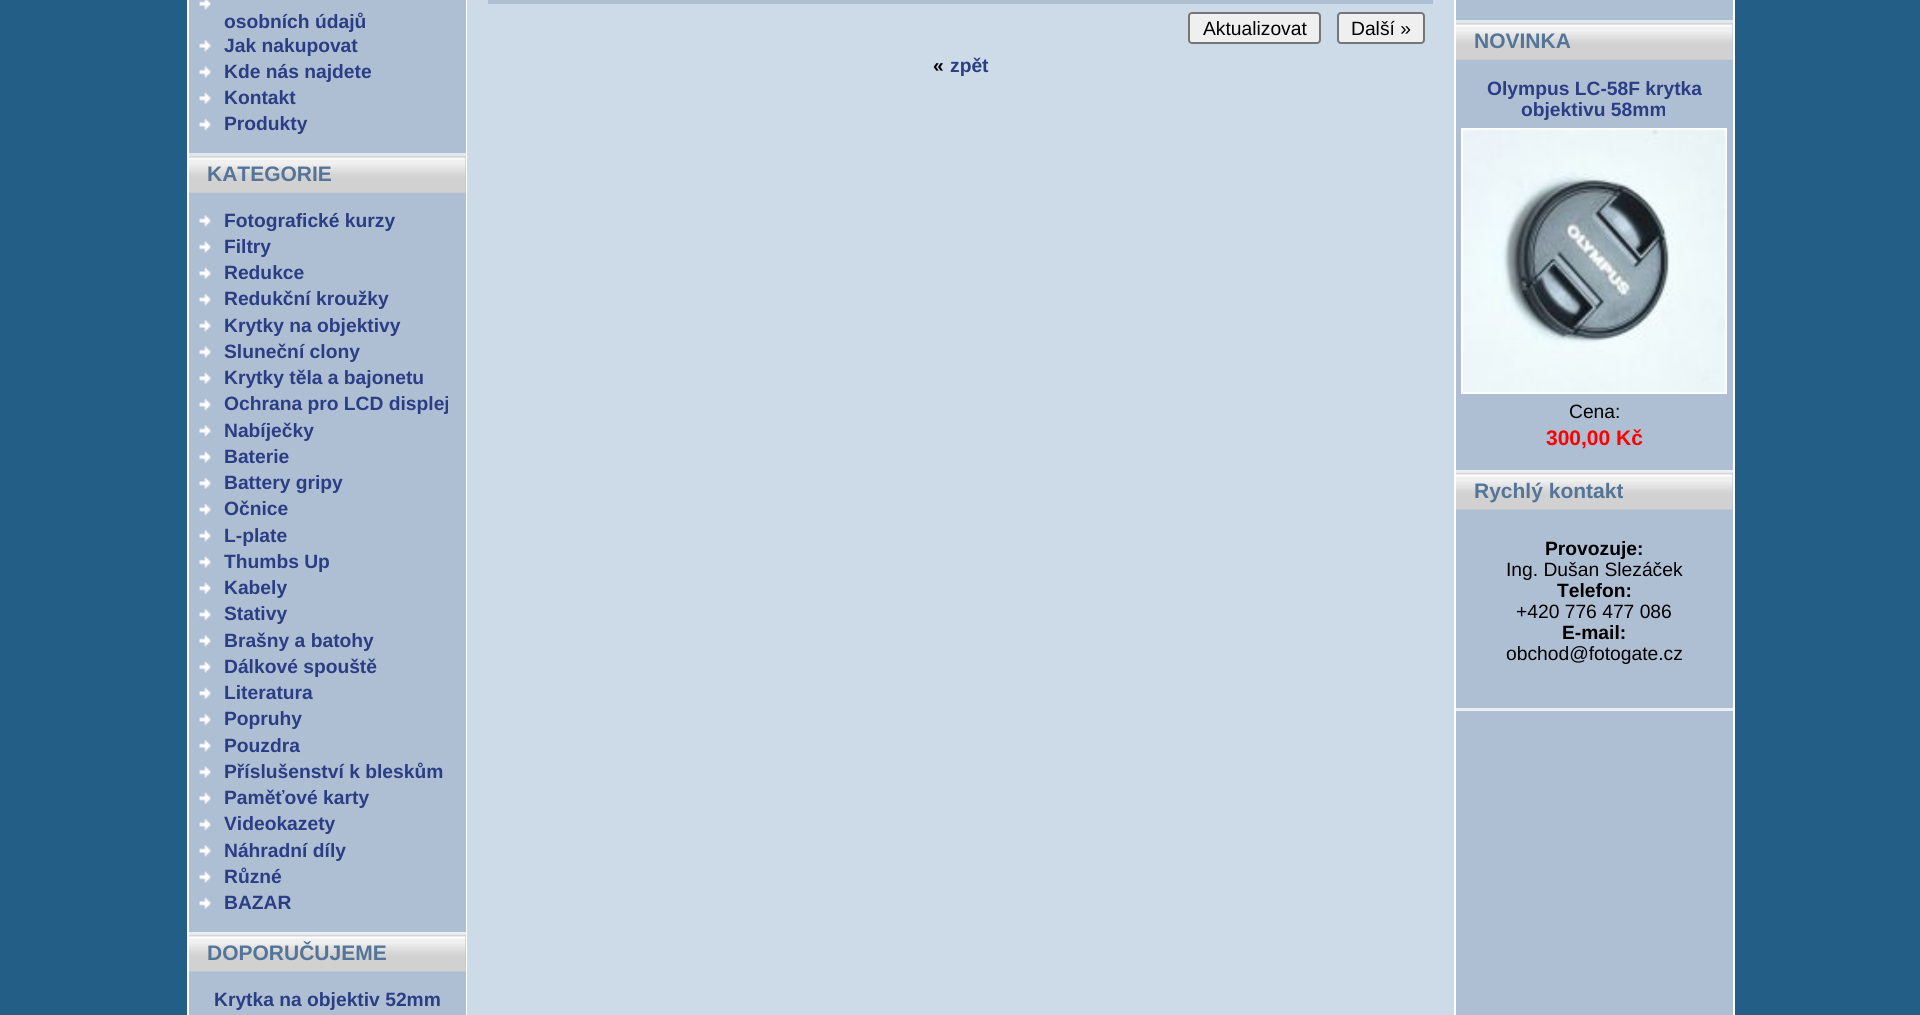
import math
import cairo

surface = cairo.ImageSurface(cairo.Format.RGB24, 1920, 1015)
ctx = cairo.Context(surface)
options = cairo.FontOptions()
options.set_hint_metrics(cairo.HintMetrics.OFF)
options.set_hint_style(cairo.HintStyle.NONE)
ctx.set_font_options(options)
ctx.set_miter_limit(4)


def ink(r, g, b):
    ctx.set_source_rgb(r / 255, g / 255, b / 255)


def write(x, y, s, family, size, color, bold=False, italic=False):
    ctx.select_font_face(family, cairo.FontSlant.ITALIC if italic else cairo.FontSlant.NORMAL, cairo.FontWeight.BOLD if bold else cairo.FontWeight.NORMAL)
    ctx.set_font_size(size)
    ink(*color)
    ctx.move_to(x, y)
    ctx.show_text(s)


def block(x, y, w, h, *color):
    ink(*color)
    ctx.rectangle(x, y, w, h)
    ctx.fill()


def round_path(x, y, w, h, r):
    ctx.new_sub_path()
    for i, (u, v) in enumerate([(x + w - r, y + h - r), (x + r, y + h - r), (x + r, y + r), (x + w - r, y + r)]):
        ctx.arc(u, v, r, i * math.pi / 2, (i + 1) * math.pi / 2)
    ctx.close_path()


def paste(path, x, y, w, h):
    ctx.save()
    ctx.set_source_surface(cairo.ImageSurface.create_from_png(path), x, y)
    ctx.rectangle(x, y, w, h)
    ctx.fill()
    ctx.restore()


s1 = dict(family="Liberation Sans", size=19.25, color=(43, 61, 132), bold=True)
s2 = dict(family="Liberation Sans", size=21, color=(84, 116, 152), bold=True)
s3 = dict(family="Liberation Sans", size=19.25, color=(0, 0, 0))
s4 = dict(family="Liberation Sans", size=19.25, color=(0, 0, 0), bold=True)
s5 = dict(family="Liberation Sans", size=21, color=(255, 0, 0), bold=True)

ink(35, 94, 134)
ctx.paint()
block(187, 0, 2, 1015, 255, 255, 255)
block(189, 0, 277, 1015, 175, 191, 211)
paste("pic1.png", 199, 0, 12, 10)
write(224, 28, "osobních údajů", **s1)
paste("pic2.png", 199, 40, 12, 12)
write(224, 52, "Jak nakupovat", **s1)
paste("pic3.png", 199, 66, 12, 12)
write(224, 78, "Kde nás najdete", **s1)
paste("pic4.png", 199, 92, 12, 12)
write(224, 104, "Kontakt", **s1)
paste("pic5.png", 199, 118, 12, 13)
write(224, 130, "Produkty", **s1)
block(189, 153, 277, 3, 225, 231, 238)
paste("pic6.png", 189, 156, 277, 37)
write(207, 181, "KATEGORIE", **s2)
paste("pic2.png", 199, 215, 12, 12)
write(224, 227, "Fotografické kurzy", **s1)
paste("pic3.png", 199, 241, 12, 12)
write(224, 253, "Filtry", **s1)
paste("pic4.png", 199, 267, 12, 12)
write(224, 279, "Redukce", **s1)
paste("pic5.png", 199, 293, 12, 13)
write(224, 305, "Redukční kroužky", **s1)
paste("pic2.png", 199, 320, 12, 12)
write(224, 332, "Krytky na objektivy", **s1)
paste("pic3.png", 199, 346, 12, 12)
write(224, 358, "Sluneční clony", **s1)
paste("pic4.png", 199, 372, 12, 12)
write(224, 384, "Krytky těla a bajonetu", **s1)
paste("pic5.png", 199, 398, 12, 13)
write(224, 410, "Ochrana pro LCD displej", **s1)
paste("pic2.png", 199, 425, 12, 12)
write(224, 437, "Nabíječky", **s1)
paste("pic3.png", 199, 451, 12, 12)
write(224, 463, "Baterie", **s1)
paste("pic4.png", 199, 477, 12, 12)
write(224, 489, "Battery gripy", **s1)
paste("pic5.png", 199, 503, 12, 13)
write(224, 515, "Očnice", **s1)
paste("pic2.png", 199, 530, 12, 12)
write(224, 542, "L-plate", **s1)
paste("pic3.png", 199, 556, 12, 12)
write(224, 568, "Thumbs Up", **s1)
paste("pic4.png", 199, 582, 12, 12)
write(224, 594, "Kabely", **s1)
paste("pic5.png", 199, 608, 12, 13)
write(224, 620, "Stativy", **s1)
paste("pic2.png", 199, 635, 12, 12)
write(224, 647, "Brašny a batohy", **s1)
paste("pic3.png", 199, 661, 12, 12)
write(224, 673, "Dálkové spouště", **s1)
paste("pic4.png", 199, 687, 12, 12)
write(224, 699, "Literatura", **s1)
paste("pic5.png", 199, 713, 12, 13)
write(224, 725, "Popruhy", **s1)
paste("pic2.png", 199, 740, 12, 12)
write(224, 752, "Pouzdra", **s1)
paste("pic3.png", 199, 766, 12, 12)
write(224, 778, "Příslušenství k bleskům", **s1)
paste("pic4.png", 199, 792, 12, 12)
write(224, 804, "Paměťové karty", **s1)
paste("pic5.png", 199, 818, 12, 13)
write(224, 830, "Videokazety", **s1)
paste("pic2.png", 199, 845, 12, 12)
write(224, 857, "Náhradní díly", **s1)
paste("pic3.png", 199, 871, 12, 12)
write(224, 883, "Různé", **s1)
paste("pic4.png", 199, 897, 12, 12)
write(224, 909, "BAZAR", **s1)
block(189, 932, 277, 3, 235, 239, 244)
paste("pic7.png", 189, 934, 277, 38)
write(207, 960, "DOPORUČUJEME", **s2)
write(214, 1006, "Krytka na objektiv 52mm", **s1)
block(466, 0, 1, 1015, 255, 255, 255)
block(467, 0, 987, 1015, 205, 219, 232)
block(488, 0, 945, 4, 175, 191, 211)
ink(239, 239, 239)
round_path(1189, 13, 131, 30, 3)
ctx.fill_preserve()
ink(118, 118, 118)
ctx.stroke()
write(1203, 35, "Aktualizovat", **s3)
ink(239, 239, 239)
round_path(1338, 13, 86, 30, 3)
ctx.fill_preserve()
ink(118, 118, 118)
ctx.stroke()
write(1351, 35, "Další »", **s3)
write(933, 72, "«", **s4)
write(950, 72, "zpět", **s1)
block(1454, 0, 2, 1015, 255, 255, 255)
block(1456, 0, 277, 1015, 175, 191, 211)
block(1456, 20, 277, 3, 225, 231, 238)
paste("pic6.png", 1456, 23, 277, 37)
write(1474, 48, "NOVINKA", **s2)
write(1487, 95, "Olympus LC-58F krytka", **s1)
write(1521, 116, "objektivu 58mm", **s1)
ctx.rectangle(1462, 129, 264, 264)
ink(255, 255, 255)
ctx.stroke()
paste("pic8.png", 1463, 129, 263, 264)
write(1569, 418, "Cena:", **s3)
write(1546, 445, "300,00 Kč", **s5)
block(1456, 470, 277, 3, 235, 239, 244)
paste("pic7.png", 1456, 472, 277, 38)
write(1474, 498, "Rychlý kontakt", **s2)
write(1545, 555, "Provozuje:", **s4)
write(1506, 576, "Ing. Dušan Slezáček", **s3)
write(1557, 597, "Telefon:", **s4)
write(1516, 618, "+420 776 477 086", **s3)
write(1562, 639, "E-mail:", **s4)
write(1506, 660, "obchod@fotogate.cz", **s3)
block(1456, 708, 277, 3, 235, 239, 244)
block(1733, 0, 2, 1015, 255, 255, 255)
surface.write_to_png("screenshot.png")
